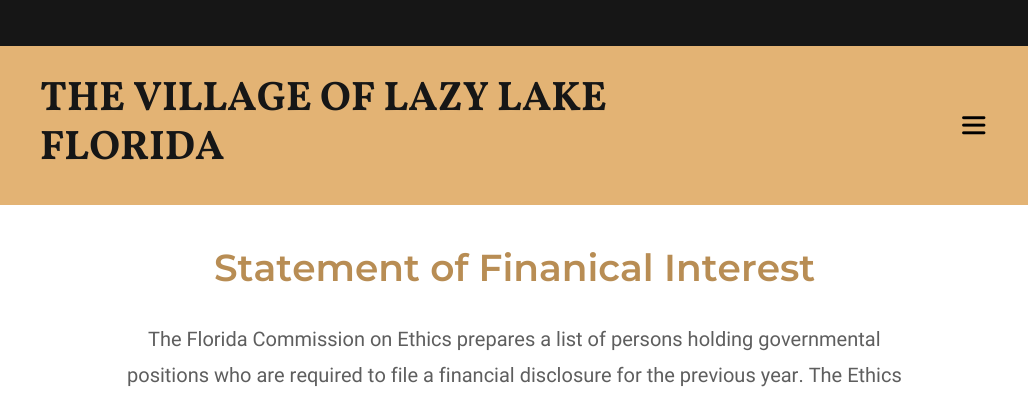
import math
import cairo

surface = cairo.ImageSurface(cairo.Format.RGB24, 1028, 407)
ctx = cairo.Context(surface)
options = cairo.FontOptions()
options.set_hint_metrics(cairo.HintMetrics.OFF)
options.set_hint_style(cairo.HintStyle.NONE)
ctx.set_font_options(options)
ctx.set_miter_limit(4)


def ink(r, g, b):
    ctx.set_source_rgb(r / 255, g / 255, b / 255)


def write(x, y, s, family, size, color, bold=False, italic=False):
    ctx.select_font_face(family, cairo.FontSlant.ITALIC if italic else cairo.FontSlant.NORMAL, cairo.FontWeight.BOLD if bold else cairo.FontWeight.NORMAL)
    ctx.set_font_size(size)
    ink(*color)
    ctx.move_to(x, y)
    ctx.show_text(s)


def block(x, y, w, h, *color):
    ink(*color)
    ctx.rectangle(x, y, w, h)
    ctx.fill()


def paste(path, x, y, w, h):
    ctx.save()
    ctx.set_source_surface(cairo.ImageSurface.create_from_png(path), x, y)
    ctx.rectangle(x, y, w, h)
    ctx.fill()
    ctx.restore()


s1 = dict(family="Vollkorn", size=41.25, color=(22, 22, 22), bold=True)
s2 = dict(family="Montserrat SemiBold", size=37.5, color=(184, 141, 84))
s3 = dict(family="Roboto", size=20, color=(94, 94, 94))

ink(255, 255, 255)
ctx.paint()
block(0, 46, 1028, 159, 227, 179, 116)
block(0, 0, 1028, 46, 22, 22, 22)
write(40, 110, "THE VILLAGE OF LAZY LAKE", **s1)
write(40, 159, "FLORIDA", **s1)
paste("pic1.png", 962, 116, 24, 19)
write(214, 281, "Statement of Finanical Interest", **s2)
write(148, 346, "The Florida Commission on Ethics prepares a list of persons holding governmental", **s3)
write(127, 382, "positions who are required to file a financial disclosure for the previous year. The Ethics", **s3)
surface.write_to_png("screenshot.png")
